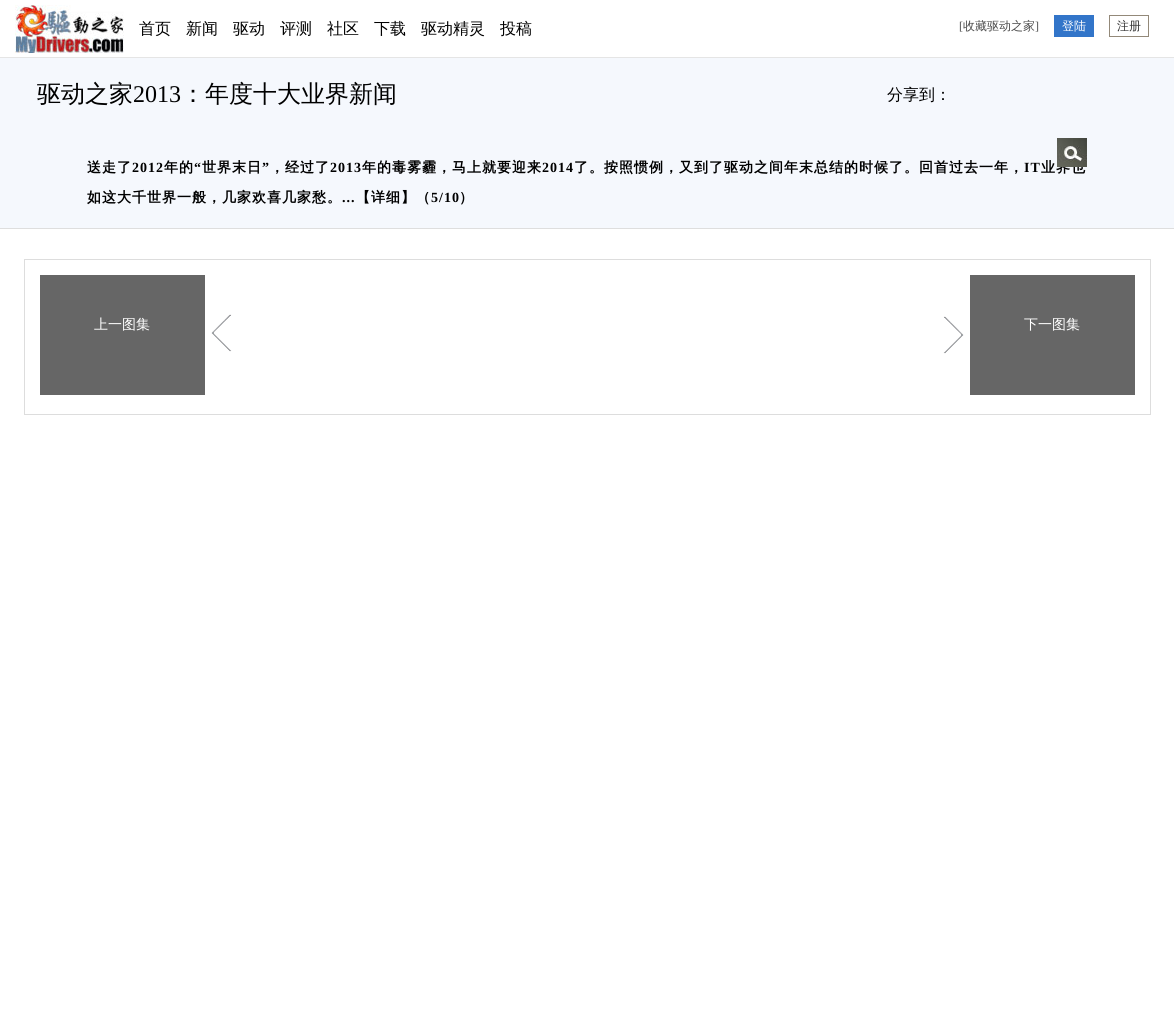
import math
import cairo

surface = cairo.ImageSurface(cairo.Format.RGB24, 1174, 1026)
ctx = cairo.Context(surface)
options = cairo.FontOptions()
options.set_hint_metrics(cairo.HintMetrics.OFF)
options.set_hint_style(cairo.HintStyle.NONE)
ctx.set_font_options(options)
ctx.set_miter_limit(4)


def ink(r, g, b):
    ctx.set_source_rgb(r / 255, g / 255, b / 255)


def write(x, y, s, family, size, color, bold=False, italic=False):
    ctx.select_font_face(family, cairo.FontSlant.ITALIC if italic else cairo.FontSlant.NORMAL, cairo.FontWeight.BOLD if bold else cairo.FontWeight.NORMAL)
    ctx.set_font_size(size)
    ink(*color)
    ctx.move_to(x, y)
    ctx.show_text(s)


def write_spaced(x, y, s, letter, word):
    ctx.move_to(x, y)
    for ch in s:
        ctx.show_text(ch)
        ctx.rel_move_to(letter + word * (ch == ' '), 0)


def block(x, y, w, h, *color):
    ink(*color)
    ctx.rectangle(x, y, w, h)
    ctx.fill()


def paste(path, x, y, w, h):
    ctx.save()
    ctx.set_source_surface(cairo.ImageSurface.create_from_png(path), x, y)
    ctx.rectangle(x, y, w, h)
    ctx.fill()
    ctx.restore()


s1 = dict(family="WenQuanYi Zen Hei Medium", size=16, color=(0, 0, 0))
s2 = dict(family="Liberation Serif", size=12, color=(76, 76, 76))
s3 = dict(family="WenQuanYi Zen Hei Medium", size=12, color=(76, 76, 76))
s4 = dict(family="WenQuanYi Zen Hei Medium", size=12, color=(255, 255, 255))
s5 = dict(family="WenQuanYi Zen Hei Medium", size=12, color=(51, 51, 51))
s6 = dict(family="WenQuanYi Zen Hei Medium", size=24, color=(0, 0, 0))
s7 = dict(family="Liberation Serif", size=24, color=(0, 0, 0))
s8 = dict(family="WenQuanYi Zen Hei Medium", size=14, color=(255, 255, 255))

ink(255, 255, 255)
ctx.paint()
block(0, 57, 1174, 1, 229, 229, 229)
paste("pic1.png", 15, 5, 109, 48)
write(139, 34, "首页", **s1)
write(186, 34, "新闻", **s1)
write(233, 34, "驱动", **s1)
write(280, 34, "评测", **s1)
write(327, 34, "社区", **s1)
write(374, 34, "下载", **s1)
write(421, 34, "驱动精灵", **s1)
write(500, 34, "投稿", **s1)
write(959, 30, "[", **s2)
write(963, 30, "收藏驱动之家", **s3)
write(1035, 30, "]", **s2)
block(1054, 15, 40, 22, 50, 117, 201)
write(1062, 30, "登陆", **s4)
ctx.rectangle(1109.5, 15.5, 39, 21)
ink(147, 137, 121)
ctx.set_line_width(1)
ctx.stroke()
write(1117, 30, "注册", **s5)
block(0, 58, 1174, 170, 245, 248, 253)
block(0, 228, 1174, 1, 222, 222, 222)
write(37, 102, "驱动之家", **s6)
write(133, 102, "2013", **s7)
write(181, 102, "：年度十大业界新闻", **s6)
write(887, 100, "分享到：", **s1)
ctx.select_font_face("WenQuanYi Zen Hei", cairo.FontSlant.NORMAL, cairo.FontWeight.BOLD)
ctx.set_font_size(14)
write_spaced(1041, 172, "业界也", 1, 0)
paste("pic2.png", 1057, 138, 30, 29)
write_spaced(87, 172, "送走了", 1, 0)
ctx.select_font_face("Liberation Serif", cairo.FontSlant.NORMAL, cairo.FontWeight.BOLD)
write_spaced(132, 172, "2012", 1, 0)
ctx.select_font_face("WenQuanYi Zen Hei", cairo.FontSlant.NORMAL, cairo.FontWeight.BOLD)
write_spaced(164, 172, "年的", 1, 0)
ctx.select_font_face("Liberation Serif", cairo.FontSlant.NORMAL, cairo.FontWeight.BOLD)
write_spaced(194, 172, "“", 1, 0)
ctx.select_font_face("WenQuanYi Zen Hei", cairo.FontSlant.NORMAL, cairo.FontWeight.BOLD)
write_spaced(202, 172, "世界末日", 1, 0)
ctx.select_font_face("Liberation Serif", cairo.FontSlant.NORMAL, cairo.FontWeight.BOLD)
write_spaced(262, 172, "”", 1, 0)
ctx.select_font_face("WenQuanYi Zen Hei", cairo.FontSlant.NORMAL, cairo.FontWeight.BOLD)
write_spaced(270, 172, "，经过了", 1, 0)
ctx.select_font_face("Liberation Serif", cairo.FontSlant.NORMAL, cairo.FontWeight.BOLD)
write_spaced(330, 172, "2013", 1, 0)
ctx.select_font_face("WenQuanYi Zen Hei", cairo.FontSlant.NORMAL, cairo.FontWeight.BOLD)
write_spaced(362, 172, "年的毒雾霾，马上就要迎来", 1, 0)
ctx.select_font_face("Liberation Serif", cairo.FontSlant.NORMAL, cairo.FontWeight.BOLD)
write_spaced(542, 172, "2014", 1, 0)
ctx.select_font_face("WenQuanYi Zen Hei", cairo.FontSlant.NORMAL, cairo.FontWeight.BOLD)
write_spaced(574, 172, "了。按照惯例，又到了驱动之间年末总结的时候了。回首过去一年，", 1, 0)
ctx.select_font_face("Liberation Serif", cairo.FontSlant.NORMAL, cairo.FontWeight.BOLD)
write_spaced(1024, 172, "IT", 1, 0)
ctx.select_font_face("WenQuanYi Zen Hei", cairo.FontSlant.NORMAL, cairo.FontWeight.BOLD)
write_spaced(87, 202, "如这大千世界一般，几家欢喜几家愁。", 1, 0)
ctx.select_font_face("Liberation Serif", cairo.FontSlant.NORMAL, cairo.FontWeight.BOLD)
write_spaced(342, 202, "...", 1, 0)
ctx.select_font_face("WenQuanYi Zen Hei", cairo.FontSlant.NORMAL, cairo.FontWeight.BOLD)
write_spaced(356, 202, "【详细】（", 1, 0)
ctx.select_font_face("Liberation Serif", cairo.FontSlant.NORMAL, cairo.FontWeight.BOLD)
write_spaced(431, 202, "5/10", 1, 0)
ctx.select_font_face("WenQuanYi Zen Hei", cairo.FontSlant.NORMAL, cairo.FontWeight.BOLD)
write_spaced(459, 202, "）", 1, 0)
ctx.rectangle(24.5, 259.5, 1126, 155)
ink(221, 221, 221)
ctx.stroke()
block(40, 275, 165, 120, 102, 102, 102)
write(94, 329, "上一图集", **s8)
paste("pic3.png", 211, 314, 21, 38)
paste("pic4.png", 943, 316, 21, 38)
block(970, 275, 165, 120, 102, 102, 102)
write(1024, 329, "下一图集", **s8)
surface.write_to_png("screenshot.png")
